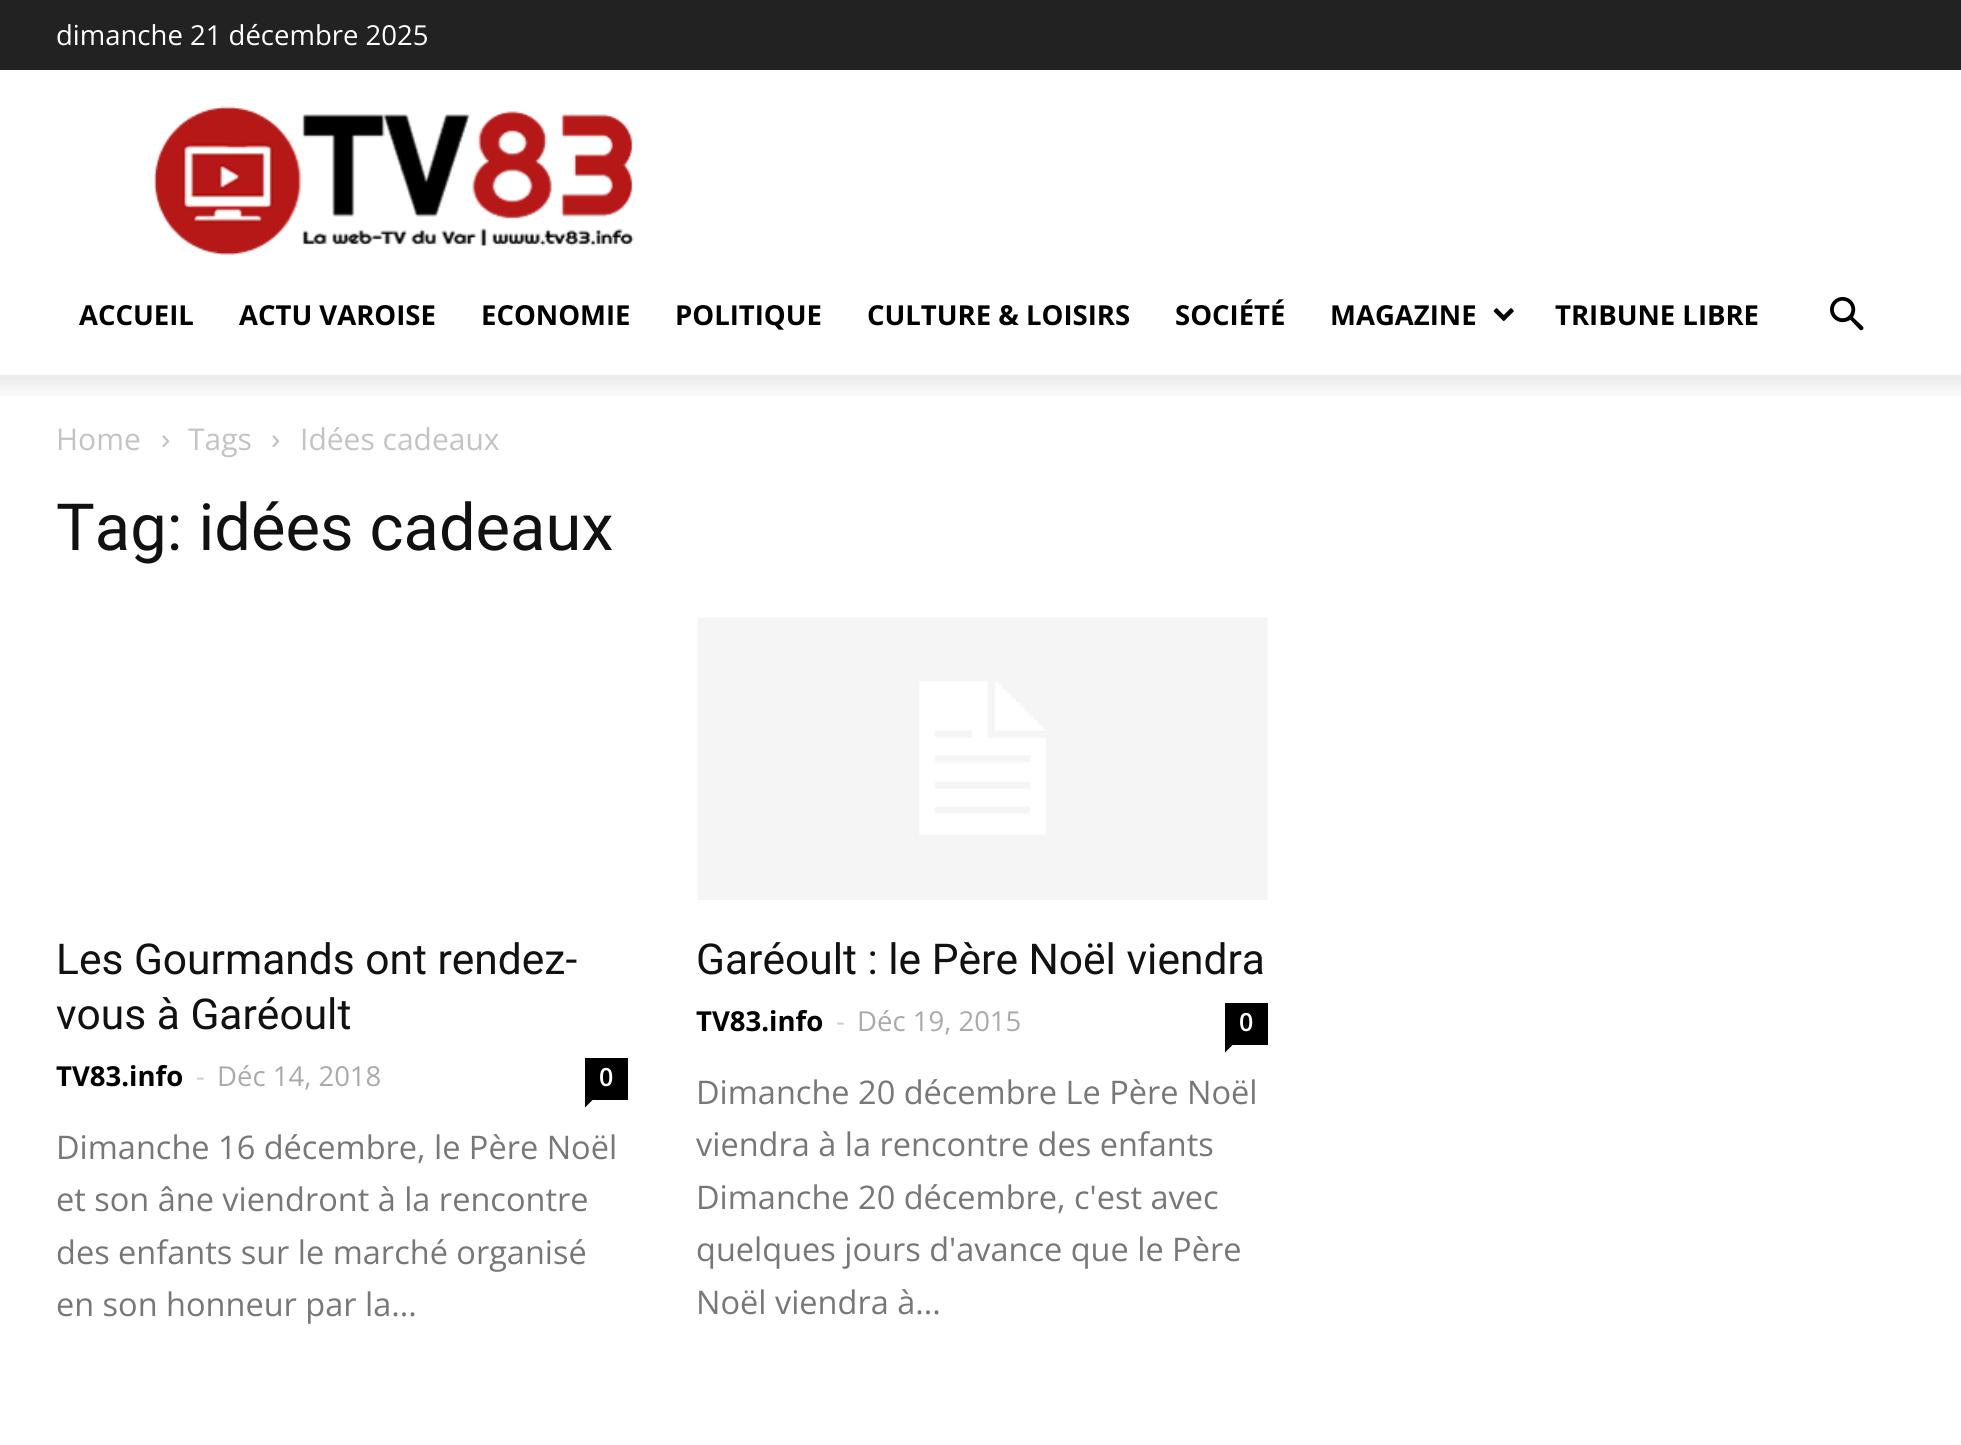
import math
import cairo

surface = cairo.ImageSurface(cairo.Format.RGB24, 1961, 1445)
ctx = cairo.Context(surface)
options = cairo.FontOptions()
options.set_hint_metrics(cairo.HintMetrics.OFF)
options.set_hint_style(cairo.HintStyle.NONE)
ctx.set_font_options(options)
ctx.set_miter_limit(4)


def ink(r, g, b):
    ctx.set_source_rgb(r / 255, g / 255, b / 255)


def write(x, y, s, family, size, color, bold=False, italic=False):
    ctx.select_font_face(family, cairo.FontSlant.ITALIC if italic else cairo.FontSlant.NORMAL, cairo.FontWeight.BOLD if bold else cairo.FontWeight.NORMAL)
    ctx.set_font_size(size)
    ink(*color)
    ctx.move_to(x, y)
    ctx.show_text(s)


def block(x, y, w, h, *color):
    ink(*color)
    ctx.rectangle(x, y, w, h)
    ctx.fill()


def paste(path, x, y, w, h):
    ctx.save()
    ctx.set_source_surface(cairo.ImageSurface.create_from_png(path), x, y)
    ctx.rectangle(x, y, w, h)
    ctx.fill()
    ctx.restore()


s1 = dict(family="Open Sans", size=27.5, color=(255, 255, 255))
s2 = dict(family="Open Sans", size=27.5, color=(0, 0, 0), bold=True)
s3 = dict(family="Open Sans", size=30, color=(195, 195, 195))
s4 = dict(family="Roboto", size=65, color=(17, 17, 17))
s5 = dict(family="Roboto", size=42.5, color=(17, 17, 17))
s6 = dict(family="Open Sans", size=27.5, color=(204, 204, 204))
s7 = dict(family="Open Sans", size=27.5, color=(170, 170, 170))
s8 = dict(family="Open Sans SemiBold", size=25, color=(255, 255, 255))
s9 = dict(family="Open Sans", size=32.5, color=(119, 119, 119))

ink(255, 255, 255)
ctx.paint()
block(0, 0, 1961, 70, 34, 34, 34)
write(56, 45, "dimanche 21 décembre 2025", **s1)
paste("pic1.png", 154, 106, 480, 149)
write(79, 325, "ACCUEIL", **s2)
write(239, 325, "ACTU VAROISE", **s2)
write(481, 325, "ECONOMIE", **s2)
write(675, 325, "POLITIQUE", **s2)
write(867, 325, "CULTURE & LOISIRS", **s2)
write(1175, 325, "SOCIÉTÉ", **s2)
write(1330, 325, "MAGAZINE", **s2)
paste("pic2.png", 1493, 308, 21, 13)
write(1555, 325, "TRIBUNE LIBRE", **s2)
paste("pic3.png", 1830, 296, 34, 35)
paste("pic4.png", 0, 375, 1961, 21)
write(56, 450, "Home", **s3)
paste("pic5.png", 162, 435, 8, 12)
write(188, 450, "Tags", **s3)
paste("pic5.png", 272, 435, 8, 12)
write(300, 450, "Idées cadeaux", **s3)
write(56, 550, "Tag: idées cadeaux", **s4)
write(56, 974, "Les Gourmands ont rendez-", **s5)
write(56, 1029, "vous à Garéoult", **s5)
write(56, 1086, "TV83.info", **s2)
write(196, 1086, "-", **s6)
write(217, 1086, "Déc 14, 2018", **s7)
block(585, 1058, 43, 42, 0, 0, 0)
write(599, 1086, "0", **s8)
ink(0, 0, 0)
ctx.new_path()
ctx.move_to(585, 1100)
ctx.line_to(592.5, 1100)
ctx.line_to(585, 1107.5)
ctx.close_path()
ctx.fill()
write(56, 1159, "Dimanche 16 décembre, le Père Noël", **s9)
write(56, 1211, "et son âne viendront à la rencontre", **s9)
write(56, 1264, "des enfants sur le marché organisé", **s9)
write(56, 1316, "en son honneur par la...", **s9)
paste("pic6.png", 697, 617, 571, 283)
write(696, 974, "Garéoult : le Père Noël viendra", **s5)
write(696, 1031, "TV83.info", **s2)
write(836, 1031, "-", **s6)
write(857, 1031, "Déc 19, 2015", **s7)
block(1225, 1003, 43, 42, 0, 0, 0)
write(1239, 1031, "0", **s8)
ink(0, 0, 0)
ctx.new_path()
ctx.move_to(1225, 1045)
ctx.line_to(1232.5, 1045)
ctx.line_to(1225, 1052.5)
ctx.close_path()
ctx.fill()
write(696, 1104, "Dimanche 20 décembre Le Père Noël", **s9)
write(696, 1156, "viendra à la rencontre des enfants", **s9)
write(696, 1209, "Dimanche 20 décembre, c'est avec", **s9)
write(696, 1261, "quelques jours d'avance que le Père", **s9)
write(696, 1314, "Noël viendra à...", **s9)
surface.write_to_png("screenshot.png")
